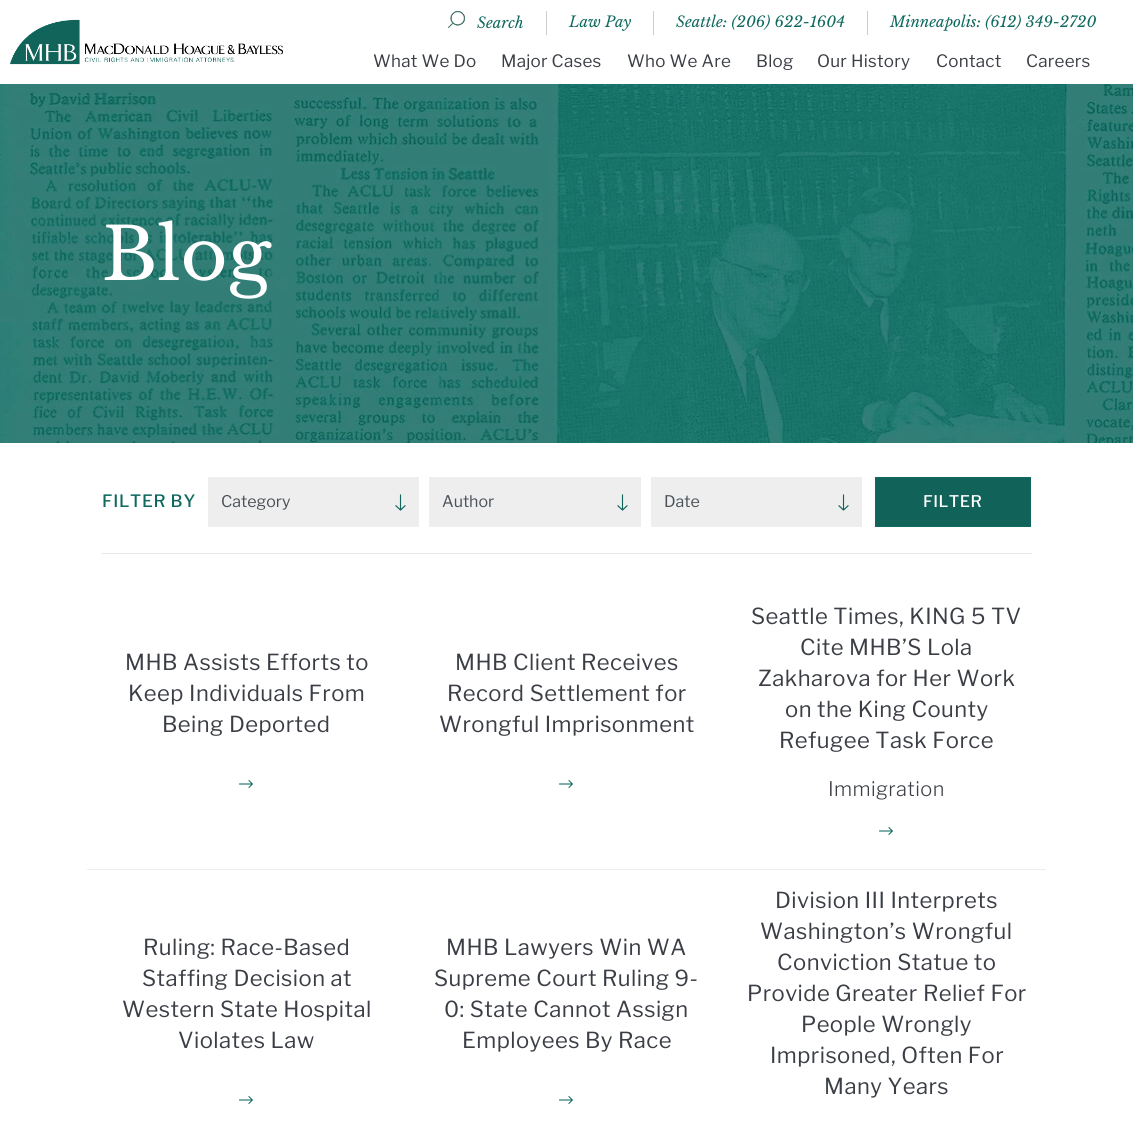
import math
import cairo

surface = cairo.ImageSurface(cairo.Format.RGB24, 1133, 1125)
ctx = cairo.Context(surface)
options = cairo.FontOptions()
options.set_hint_metrics(cairo.HintMetrics.OFF)
options.set_hint_style(cairo.HintStyle.NONE)
ctx.set_font_options(options)
ctx.set_miter_limit(4)


def ink(r, g, b):
    ctx.set_source_rgb(r / 255, g / 255, b / 255)


def write(x, y, s, family, size, color, bold=False, italic=False):
    ctx.select_font_face(family, cairo.FontSlant.ITALIC if italic else cairo.FontSlant.NORMAL, cairo.FontWeight.BOLD if bold else cairo.FontWeight.NORMAL)
    ctx.set_font_size(size)
    ink(*color)
    ctx.move_to(x, y)
    ctx.show_text(s)


def write_spaced(x, y, s, letter, word):
    ctx.move_to(x, y)
    for ch in s:
        ctx.show_text(ch)
        ctx.rel_move_to(letter + word * (ch == ' '), 0)


def block(x, y, w, h, *color):
    ink(*color)
    ctx.rectangle(x, y, w, h)
    ctx.fill()


def paste(path, x, y, w, h):
    ctx.save()
    ctx.set_source_surface(cairo.ImageSurface.create_from_png(path), x, y)
    ctx.rectangle(x, y, w, h)
    ctx.fill()
    ctx.restore()


s1 = dict(family="Libre Baskerville", size=15, color=(15, 105, 95), italic=True)
s2 = dict(family="Libre Baskerville", size=72, color=(255, 255, 255))
s3 = dict(family="Libre Franklin", size=16, color=(73, 80, 87))

ink(255, 255, 255)
ctx.paint()
paste("pic1.png", 10, 19, 273, 46)
paste("pic2.png", 448, 11, 17, 17)
write(477, 28, "Search", **s1)
block(546, 11, 1, 24, 204, 204, 204)
write(569, 27, "Law Pay", **s1)
block(653, 11, 1, 24, 204, 204, 204)
write(676, 27, "Seattle: (206) 622-1604", **s1)
block(867, 11, 1, 24, 204, 204, 204)
write(890, 27, "Minneapolis: (612) 349-2720", **s1)
ctx.select_font_face("Libre Franklin")
ctx.set_font_size(17)
ink(59, 62, 69)
write_spaced(373, 67, "What We Do", 0.25, 0)
write_spaced(501, 67, "Major Cases", 0.25, 0)
write_spaced(627, 67, "Who We Are", 0.25, 0)
write_spaced(756, 67, "Blog", 0.25, 0)
write_spaced(817, 67, "Our History", 0.25, 0)
write_spaced(936, 67, "Contact", 0.25, 0)
write_spaced(1026, 67, "Careers", 0.25, 0)
paste("pic3.png", 0, 84, 1133, 359)
write(102, 280, "Blog", **s2)
ctx.select_font_face("Libre Franklin Medium")
ctx.set_font_size(17)
ink(15, 105, 95)
write_spaced(102, 507, "FILTER BY", 0.75, 0)
block(208, 477, 211, 50, 238, 238, 238)
paste("pic4.png", 395, 494, 11, 17)
write(221, 507, "Category", **s3)
block(429, 477, 212, 50, 238, 238, 238)
paste("pic4.png", 617, 494, 11, 17)
write(442, 507, "Author", **s3)
block(651, 477, 211, 50, 238, 238, 238)
paste("pic4.png", 838, 494, 11, 17)
write(664, 507, "Date", **s3)
ink(17, 99, 89)
ctx.rectangle(875.5, 477.5, 155, 49)
ctx.fill_preserve()
ink(15, 105, 95)
ctx.set_line_width(1)
ctx.stroke()
ctx.select_font_face("Libre Franklin Medium")
ink(255, 255, 255)
write_spaced(923, 507, "FILTER", 0.5, 0)
block(102, 553, 930, 1, 230, 230, 230)
block(87, 869, 959, 1, 238, 238, 238)
ctx.select_font_face("Libre Franklin")
ctx.set_font_size(22)
ink(59, 62, 69)
write_spaced(125, 670, "MHB Assists Efforts to", 0.45, 0)
write_spaced(128, 701, "Keep Individuals From", 0.45, 0)
write_spaced(162, 732, "Being Deported", 0.45, 0)
paste("pic5.png", 239, 780, 14, 8)
write_spaced(455, 670, "MHB Client Receives", 0.45, 0)
write_spaced(447, 701, "Record Settlement for", 0.45, 0)
write_spaced(439, 732, "Wrongful Imprisonment", 0.45, 0)
paste("pic5.png", 559, 780, 14, 8)
write_spaced(751, 624, "Seattle Times, KING 5 TV", 0.45, 0)
write_spaced(800, 655, "Cite MHB’S Lola", 0.45, 0)
write_spaced(758, 686, "Zakharova for Her Work", 0.45, 0)
write_spaced(785, 717, "on the King County", 0.45, 0)
write_spaced(779, 748, "Refugee Task Force", 0.45, 0)
ctx.select_font_face("Libre Franklin Light")
ctx.set_font_size(20)
write_spaced(828, 796, "Immigration", 0.4, 0)
paste("pic5.png", 879, 827, 14, 8)
ctx.select_font_face("Libre Franklin")
ctx.set_font_size(22)
write_spaced(143, 955, "Ruling: Race-Based", 0.45, 0)
write_spaced(142, 986, "Staffing Decision at", 0.45, 0)
write_spaced(122, 1017, "Western State Hospital", 0.45, 0)
write_spaced(178, 1048, "Violates Law", 0.45, 0)
paste("pic5.png", 239, 1096, 14, 8)
write_spaced(446, 955, "MHB Lawyers Win WA", 0.45, 0)
write_spaced(434, 986, "Supreme Court Ruling 9-", 0.45, 0)
write_spaced(444, 1017, "0: State Cannot Assign", 0.45, 0)
write_spaced(462, 1048, "Employees By Race", 0.45, 0)
paste("pic5.png", 559, 1096, 14, 8)
write_spaced(775, 908, "Division III Interprets", 0.45, 0)
write_spaced(760, 939, "Washington’s Wrongful", 0.45, 0)
write_spaced(777, 970, "Conviction Statue to", 0.45, 0)
write_spaced(747, 1001, "Provide Greater Relief For", 0.45, 0)
write_spaced(801, 1032, "People Wrongly", 0.45, 0)
write_spaced(770, 1063, "Imprisoned, Often For", 0.45, 0)
write_spaced(824, 1094, "Many Years", 0.45, 0)
surface.write_to_png("screenshot.png")
